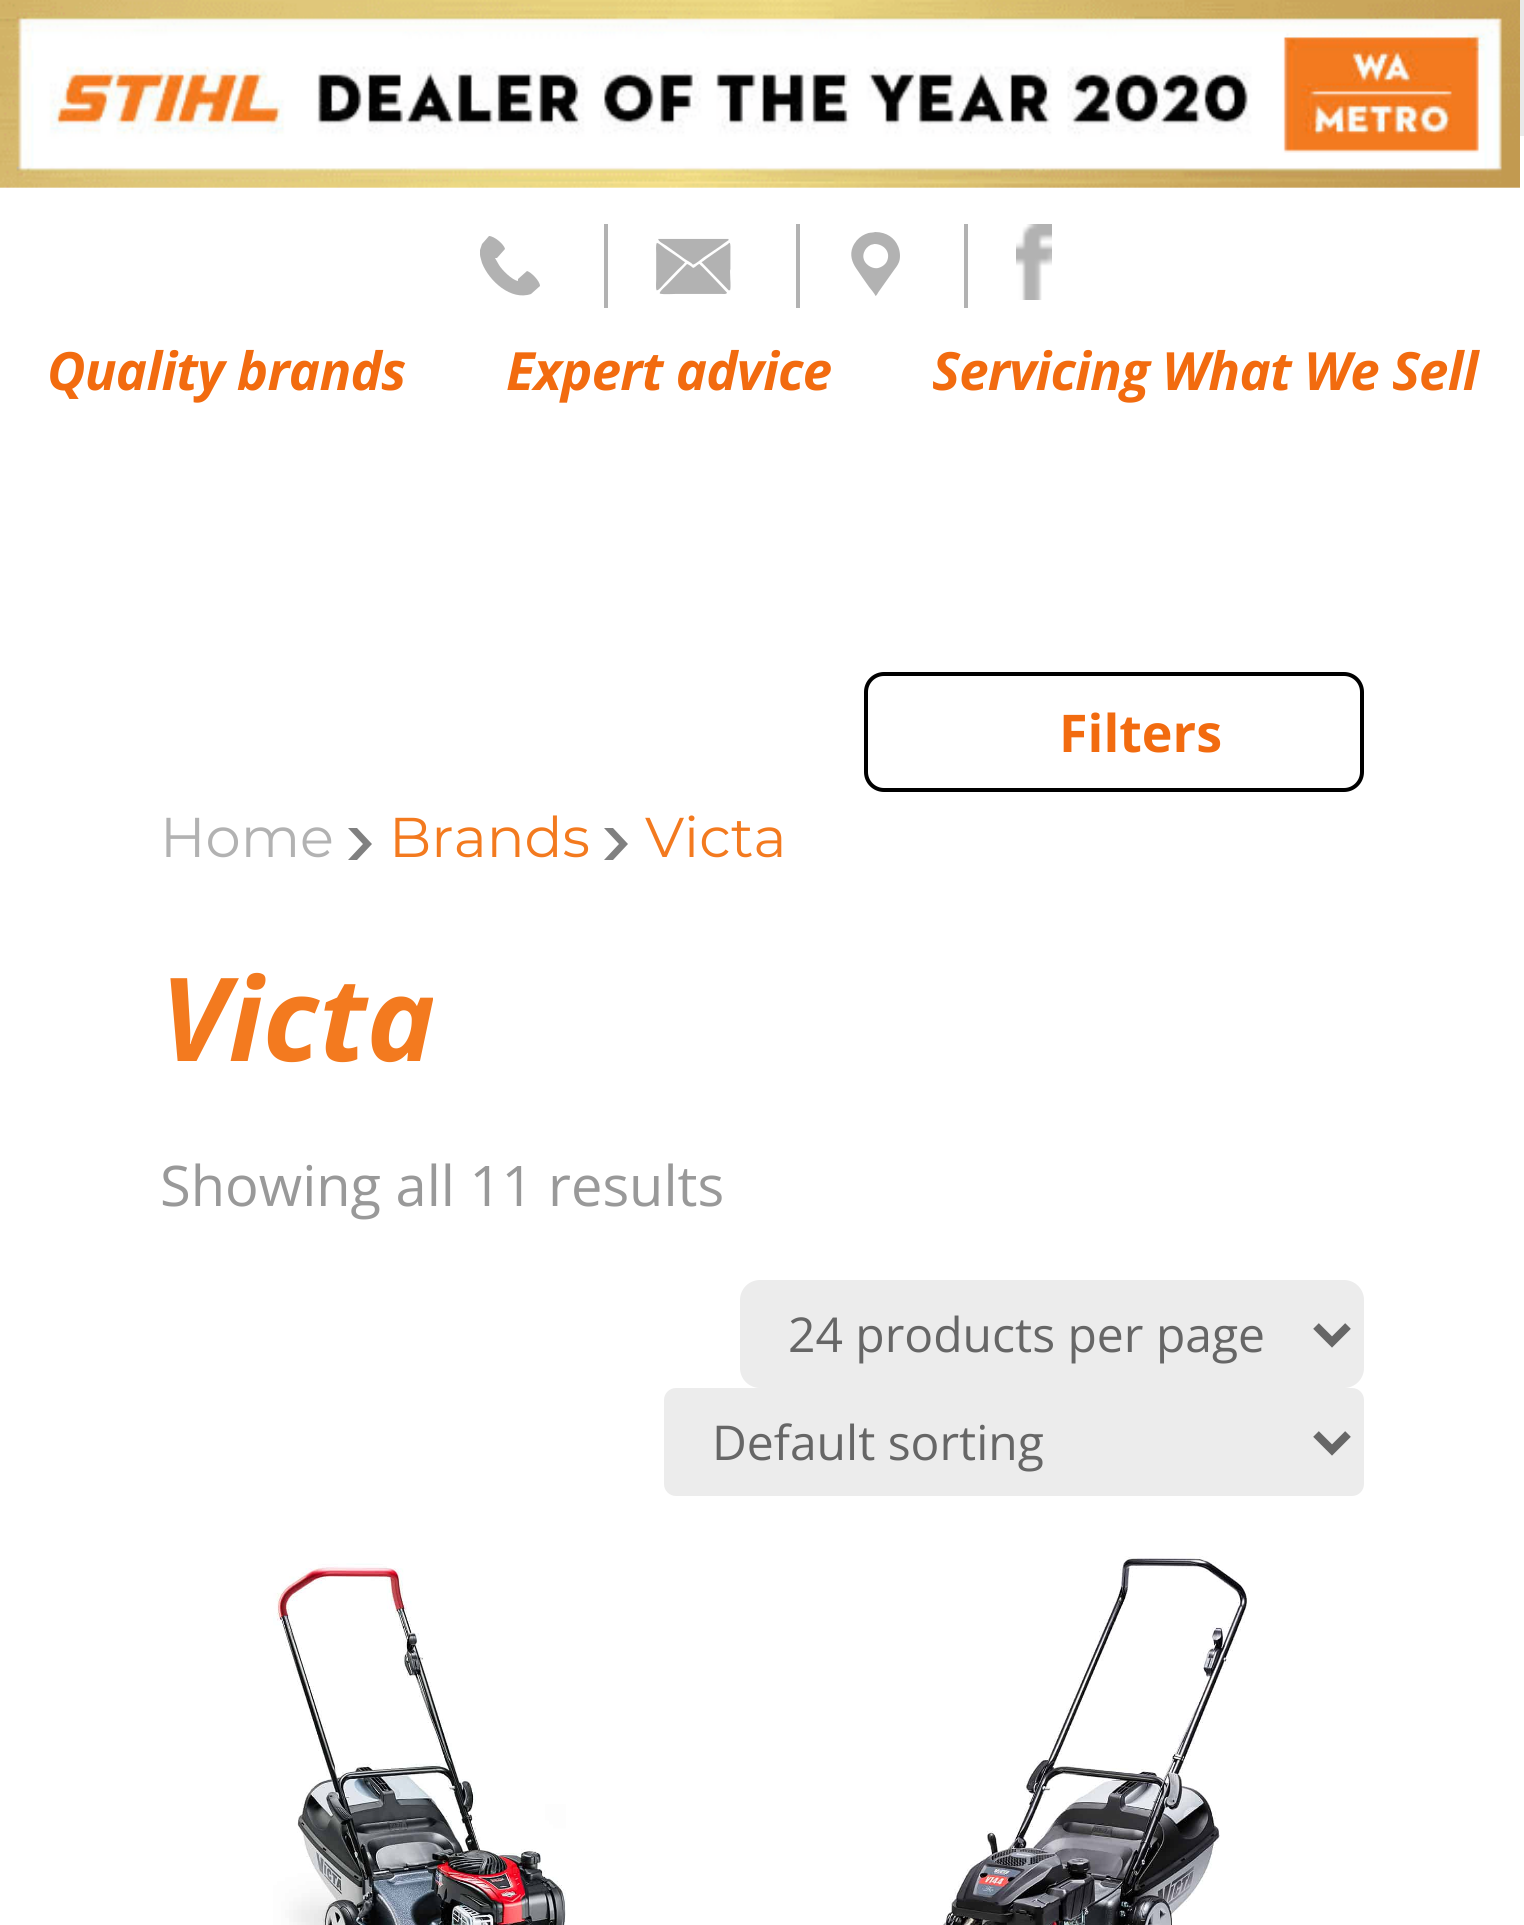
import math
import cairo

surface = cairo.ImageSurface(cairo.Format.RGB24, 1524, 1925)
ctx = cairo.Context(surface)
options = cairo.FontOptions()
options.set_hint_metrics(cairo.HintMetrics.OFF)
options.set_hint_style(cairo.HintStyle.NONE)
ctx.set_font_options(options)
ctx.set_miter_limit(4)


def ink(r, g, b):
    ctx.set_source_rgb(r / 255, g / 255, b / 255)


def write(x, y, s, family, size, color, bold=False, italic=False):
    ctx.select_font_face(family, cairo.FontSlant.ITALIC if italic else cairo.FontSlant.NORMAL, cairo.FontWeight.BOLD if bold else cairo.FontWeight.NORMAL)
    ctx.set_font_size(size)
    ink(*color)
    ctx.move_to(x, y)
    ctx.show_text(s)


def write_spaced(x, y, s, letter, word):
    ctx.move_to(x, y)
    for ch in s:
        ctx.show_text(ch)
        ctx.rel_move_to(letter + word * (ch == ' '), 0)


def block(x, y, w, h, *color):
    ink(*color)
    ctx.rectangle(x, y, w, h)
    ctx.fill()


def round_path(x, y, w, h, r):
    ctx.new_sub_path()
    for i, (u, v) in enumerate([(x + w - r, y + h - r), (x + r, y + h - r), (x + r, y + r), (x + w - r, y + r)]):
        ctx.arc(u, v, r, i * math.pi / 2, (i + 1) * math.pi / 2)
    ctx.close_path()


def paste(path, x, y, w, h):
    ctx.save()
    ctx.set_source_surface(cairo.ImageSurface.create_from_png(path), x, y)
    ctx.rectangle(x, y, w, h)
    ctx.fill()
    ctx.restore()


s1 = dict(family="Open Sans", size=52, color=(242, 107, 15), bold=True)
s2 = dict(family="Montserrat", size=56, color=(178, 178, 178))
s3 = dict(family="Montserrat", size=56, color=(243, 122, 31))
s4 = dict(family="Open Sans", size=116, color=(243, 122, 31), bold=True, italic=True)
s5 = dict(family="Open Sans", size=56, color=(153, 153, 153))
s6 = dict(family="Open Sans", size=48, color=(102, 102, 102))

ink(255, 255, 255)
ctx.paint()
block(1520, 0, 4, 136, 233, 233, 233)
paste("pic1.png", 0, 0, 1520, 188)
ctx.save()
ctx.rectangle(480, 236, 60, 60)
ctx.clip()
ink(178, 178, 178)
ctx.new_path()
ctx.move_to(489, 236)
ctx.curve_to(494, 236, 504, 244, 505, 249)
ctx.line_to(497, 258)
ctx.line_to(495, 258)
ctx.line_to(499, 265)
ctx.curve_to(502, 270, 512, 280, 518, 281)
ctx.line_to(518, 279)
ctx.line_to(527, 271)
ctx.curve_to(531, 272, 540, 281, 540, 286)
ctx.line_to(531, 294)
ctx.curve_to(511, 301, 489, 281, 482, 263)
ctx.curve_to(481, 259, 479, 254, 480, 250)
ctx.line_to(482, 244)
ctx.close_path()
ctx.fill()
ctx.restore()
block(604, 224, 4, 84, 178, 178, 178)
paste("pic2.png", 656, 238, 75, 57)
block(796, 224, 4, 84, 178, 178, 178)
paste("pic3.png", 851, 232, 49, 64)
block(964, 224, 4, 84, 178, 178, 178)
paste("pic4.png", 1016, 224, 36, 76)
ctx.select_font_face("Open Sans", cairo.FontSlant.ITALIC, cairo.FontWeight.BOLD)
ctx.set_font_size(52.75)
ink(242, 107, 15)
write_spaced(47, 390, "Quality brands", -0.75, 0)
write_spaced(506, 390, "Expert advice", -0.75, 0)
write_spaced(932, 390, "Servicing What We Sell", -0.75, 0)
round_path(866, 674, 496, 116, 18)
ink(0, 0, 0)
ctx.set_line_width(4)
ctx.stroke()
write(1059, 752, "Filters", **s1)
write(160, 857, "Home", **s2)
ink(128, 128, 128)
ctx.new_path()
ctx.move_to(348, 860)
ctx.line_to(363, 844)
ctx.line_to(348, 828)
ctx.line_to(357, 828)
ctx.line_to(372, 844)
ctx.line_to(357, 860)
ctx.close_path()
ctx.fill()
write(389, 857, "Brands", **s3)
ink(128, 128, 128)
ctx.new_path()
ctx.move_to(604, 860)
ctx.line_to(619, 844)
ctx.line_to(604, 828)
ctx.line_to(613, 828)
ctx.line_to(628, 844)
ctx.line_to(613, 860)
ctx.close_path()
ctx.fill()
write(645, 857, "Victa", **s3)
write(160, 1061, "Victa", **s4)
write(160, 1206, "Showing all 11 results", **s5)
ink(236, 236, 236)
round_path(740, 1280, 624, 108, 20)
ctx.fill()
ctx.new_path()
ctx.move_to(1316, 1326)
ctx.line_to(1332, 1342)
ctx.line_to(1348, 1326)
ink(102, 102, 102)
ctx.set_line_width(8)
ctx.stroke()
write(788, 1352, "24 products per page", **s6)
ink(236, 236, 236)
round_path(664, 1388, 700, 108, 12)
ctx.fill()
ctx.new_path()
ctx.move_to(1316, 1434)
ctx.line_to(1332, 1450)
ctx.line_to(1348, 1434)
ink(102, 102, 102)
ctx.stroke()
write(712, 1460, "Default sorting", **s6)
paste("pic5.png", 273, 1563, 293, 362)
paste("pic6.png", 942, 1553, 307, 372)
surface.write_to_png("screenshot.png")
